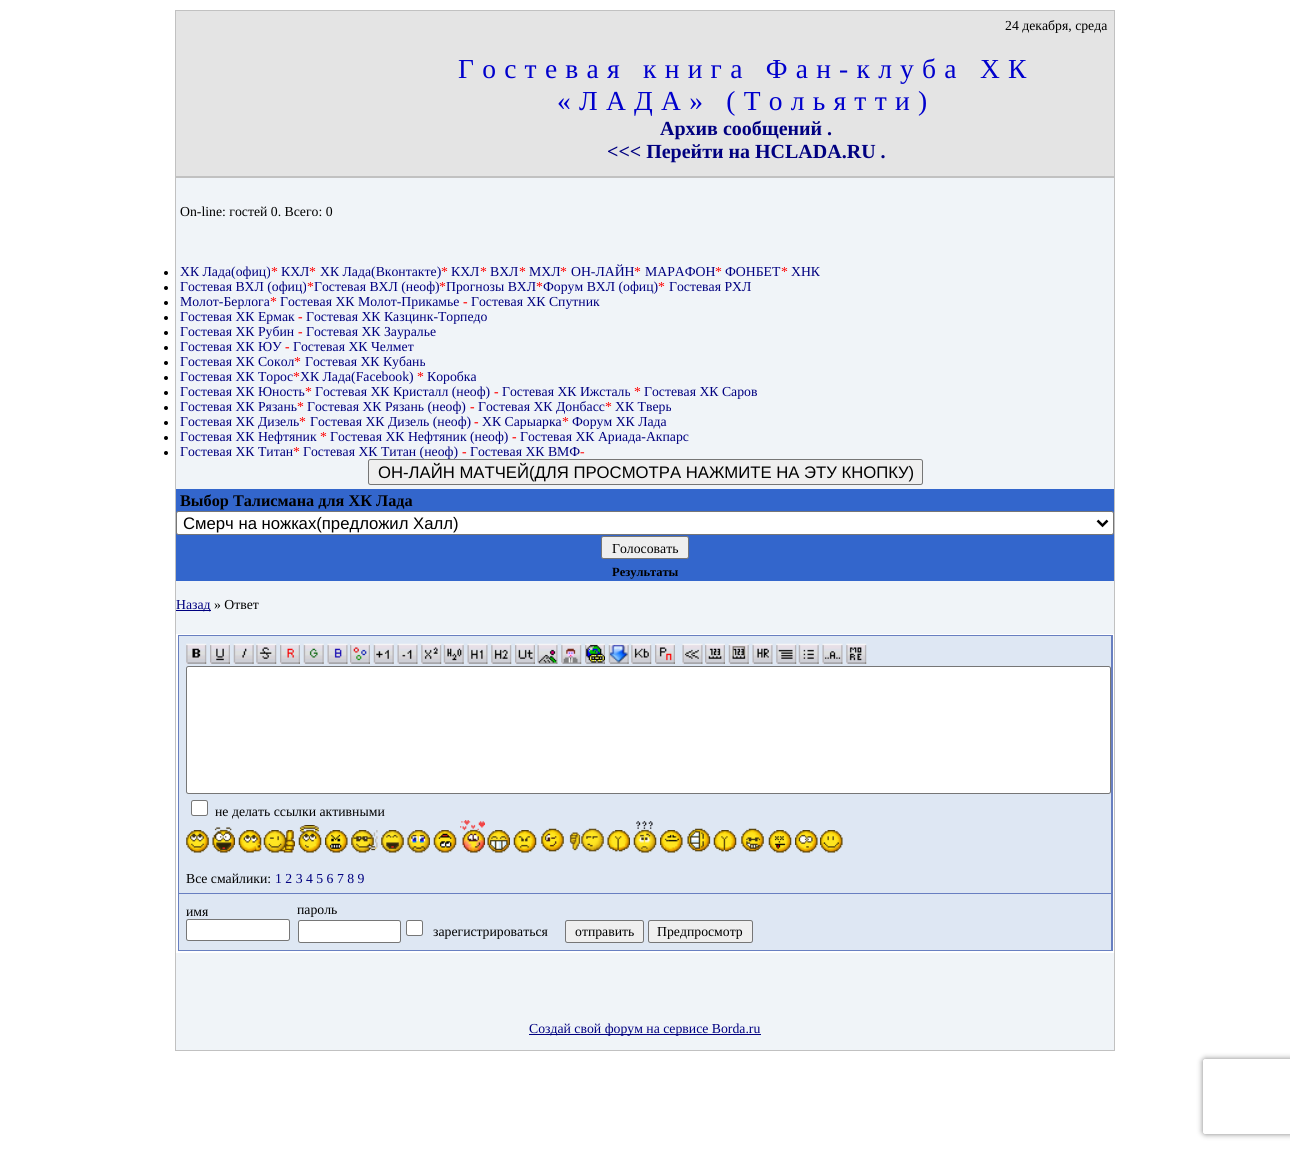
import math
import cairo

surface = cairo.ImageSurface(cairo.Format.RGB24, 1290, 1151)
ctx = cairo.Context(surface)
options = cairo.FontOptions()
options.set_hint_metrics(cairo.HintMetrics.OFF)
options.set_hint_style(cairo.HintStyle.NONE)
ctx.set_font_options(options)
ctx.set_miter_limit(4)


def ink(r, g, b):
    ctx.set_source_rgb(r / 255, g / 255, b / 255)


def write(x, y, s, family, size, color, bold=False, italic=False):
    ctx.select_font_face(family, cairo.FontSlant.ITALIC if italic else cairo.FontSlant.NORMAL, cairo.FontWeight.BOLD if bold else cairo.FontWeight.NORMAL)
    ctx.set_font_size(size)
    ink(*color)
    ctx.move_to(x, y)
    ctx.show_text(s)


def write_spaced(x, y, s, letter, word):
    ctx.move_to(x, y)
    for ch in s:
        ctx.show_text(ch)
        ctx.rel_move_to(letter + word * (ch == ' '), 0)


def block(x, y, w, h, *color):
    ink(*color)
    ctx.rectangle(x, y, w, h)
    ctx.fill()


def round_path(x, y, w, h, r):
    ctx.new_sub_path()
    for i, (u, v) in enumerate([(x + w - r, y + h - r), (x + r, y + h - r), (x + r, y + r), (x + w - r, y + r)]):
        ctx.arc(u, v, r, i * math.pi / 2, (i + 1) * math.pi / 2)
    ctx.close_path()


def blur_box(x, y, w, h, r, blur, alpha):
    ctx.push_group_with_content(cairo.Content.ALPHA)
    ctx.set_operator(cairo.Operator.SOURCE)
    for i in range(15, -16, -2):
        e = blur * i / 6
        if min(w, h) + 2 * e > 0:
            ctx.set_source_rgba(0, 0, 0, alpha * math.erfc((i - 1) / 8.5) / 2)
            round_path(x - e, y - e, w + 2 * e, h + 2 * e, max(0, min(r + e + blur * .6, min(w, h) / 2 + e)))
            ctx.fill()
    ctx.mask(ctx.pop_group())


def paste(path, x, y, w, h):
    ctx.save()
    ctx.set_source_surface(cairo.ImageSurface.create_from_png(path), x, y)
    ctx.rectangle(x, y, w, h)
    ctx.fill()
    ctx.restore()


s1 = dict(family="Liberation Serif", size=13.75, color=(0, 0, 0))
s2 = dict(family="Liberation Serif", size=20, color=(0, 0, 128), bold=True)
s3 = dict(family="Liberation Serif", size=13.75, color=(0, 0, 128))
s4 = dict(family="Liberation Serif", size=13.75, color=(255, 0, 0))
s5 = dict(family="Liberation Serif", size=13.75, color=(255, 0, 0), bold=True)
s6 = dict(family="Liberation Sans", size=16.7, color=(0, 0, 0))
s7 = dict(family="Liberation Serif", size=16.25, color=(0, 0, 0), bold=True)
s8 = dict(family="Liberation Serif", size=12.5, color=(0, 0, 0), bold=True)

ink(255, 255, 255)
ctx.paint()
block(175, 10, 940, 1041, 193, 193, 193)
block(176, 11, 938, 165, 228, 228, 228)
write(1005, 30, "24 декабря, среда", **s1)
ctx.set_font_size(27.5)
ink(0, 0, 204)
write_spaced(458, 78, "Гостевая книга Фан-клуба ХК", 8.25, 0)
write_spaced(557, 110, "«ЛАДА» (Тольятти)", 8.25, 0)
write(660, 135, "Архив сообщений .", **s2)
write(607, 158, "<<< Перейти на HCLADA.RU .", **s2)
block(176, 178, 938, 872, 240, 244, 248)
write(180, 216, "On-line: гостей 0. Всего: 0", **s1)
ctx.new_path()
ctx.arc(166, 273, 2, 0, 2 * math.pi)
ctx.fill()
write(180, 276, "ХК Лада(офиц)", **s3)
write(271, 276, "*", **s4)
write(281, 276, "КХЛ", **s3)
write(309, 276, "*", **s4)
write(320, 276, "ХК Лада(Вконтакте)", **s3)
write(441, 276, "*", **s4)
write(451, 276, "КХЛ", **s3)
write(480, 276, "*", **s4)
write(490, 276, "ВХЛ", **s3)
write(519, 276, "*", **s4)
write(529, 276, "МХЛ", **s3)
write(560, 276, "*", **s4)
write(571, 276, "ОН-ЛАЙН", **s3)
write(634, 276, "*", **s4)
write(645, 276, "МАРАФОН", **s3)
write(715, 276, "*", **s4)
write(725, 276, "ФОНБЕТ", **s3)
write(781, 276, "*", **s4)
write(791, 276, "ХНК", **s3)
ink(0, 0, 0)
ctx.new_path()
ctx.arc(166, 288, 2, 0, 2 * math.pi)
ctx.fill()
write(180, 291, "Гостевая ВХЛ (офиц)", **s3)
write(307, 291, "*", **s4)
write(314, 291, "Гостевая ВХЛ (неоф)", **s3)
write(439, 291, "*", **s4)
write(446, 291, "Прогнозы ВХЛ", **s3)
write(536, 291, "*", **s4)
write(543, 291, "Форум ВХЛ (офиц)", **s3)
write(658, 291, "*", **s4)
write(669, 291, "Гостевая РХЛ", **s3)
ink(0, 0, 0)
ctx.new_path()
ctx.arc(166, 303, 2, 0, 2 * math.pi)
ctx.fill()
write(180, 306, "Молот-Берлога", **s3)
write(270, 306, "*", **s4)
write(280, 306, "Гостевая ХК Молот-Прикамье", **s3)
write(463, 306, "-", **s5)
write(471, 306, "Гостевая ХК Спутник", **s3)
ink(0, 0, 0)
ctx.new_path()
ctx.arc(166, 318, 2, 0, 2 * math.pi)
ctx.fill()
write(180, 321, "Гостевая ХК Ермак", **s3)
write(298, 321, "-", **s5)
write(306, 321, "Гостевая ХК Казцинк-Торпедо", **s3)
ink(0, 0, 0)
ctx.new_path()
ctx.arc(166, 333, 2, 0, 2 * math.pi)
ctx.fill()
write(180, 336, "Гостевая ХК Рубин", **s3)
write(298, 336, "-", **s5)
write(306, 336, "Гостевая ХК Зауралье", **s3)
ink(0, 0, 0)
ctx.new_path()
ctx.arc(166, 348, 2, 0, 2 * math.pi)
ctx.fill()
write(180, 351, "Гостевая ХК ЮУ", **s3)
write(285, 351, "-", **s5)
write(293, 351, "Гостевая ХК Челмет", **s3)
ink(0, 0, 0)
ctx.new_path()
ctx.arc(166, 363, 2, 0, 2 * math.pi)
ctx.fill()
write(180, 366, "Гостевая ХК Сокол", **s3)
write(294, 366, "*", **s4)
write(305, 366, "Гостевая ХК Кубань", **s3)
ink(0, 0, 0)
ctx.new_path()
ctx.arc(166, 378, 2, 0, 2 * math.pi)
ctx.fill()
write(180, 381, "Гостевая ХК Торос", **s3)
write(293, 381, "*", **s4)
write(300, 381, "ХК Лада(Facebook)", **s3)
write(417, 381, "*", **s4)
write(427, 381, "Коробка", **s3)
ink(0, 0, 0)
ctx.new_path()
ctx.arc(166, 393, 2, 0, 2 * math.pi)
ctx.fill()
write(180, 396, "Гостевая ХК Юность", **s3)
write(305, 396, "*", **s4)
write(315, 396, "Гостевая ХК Кристалл (неоф)", **s3)
write(494, 396, "-", **s5)
write(502, 396, "Гостевая ХК Ижсталь", **s3)
write(634, 396, "*", **s4)
write(644, 396, "Гостевая ХК Саров", **s3)
ink(0, 0, 0)
ctx.new_path()
ctx.arc(166, 408, 2, 0, 2 * math.pi)
ctx.fill()
write(180, 411, "Гостевая ХК Рязань", **s3)
write(297, 411, "*", **s4)
write(307, 411, "Гостевая ХК Рязань (неоф)", **s3)
write(470, 411, "-", **s5)
write(478, 411, "Гостевая ХК Донбасс", **s3)
write(605, 411, "*", **s4)
write(615, 411, "ХК Тверь", **s3)
ink(0, 0, 0)
ctx.new_path()
ctx.arc(166, 423, 2, 0, 2 * math.pi)
ctx.fill()
write(180, 426, "Гостевая ХК Дизель", **s3)
write(299, 426, "*", **s4)
write(310, 426, "Гостевая ХК Дизель (неоф)", **s3)
write(474, 426, "-", **s5)
write(482, 426, "ХК Сарыарка", **s3)
write(562, 426, "*", **s4)
write(572, 426, "Форум ХК Лада", **s3)
ink(0, 0, 0)
ctx.new_path()
ctx.arc(166, 438, 2, 0, 2 * math.pi)
ctx.fill()
write(180, 441, "Гостевая ХК Нефтяник", **s3)
write(320, 441, "*", **s4)
write(330, 441, "Гостевая ХК Нефтяник (неоф)", **s3)
write(512, 441, "-", **s5)
write(520, 441, "Гостевая ХК Ариада-Акпарс", **s3)
ink(0, 0, 0)
ctx.new_path()
ctx.arc(166, 453, 2, 0, 2 * math.pi)
ctx.fill()
write(180, 456, "Гостевая ХК Титан", **s3)
write(293, 456, "*", **s4)
write(303, 456, "Гостевая ХК Титан (неоф)", **s3)
write(462, 456, "-", **s5)
write(470, 456, "Гостевая ХК ВМФ", **s3)
write(580, 456, "-", **s4)
ink(239, 239, 239)
round_path(368.5, 459.5, 554, 25, 2)
ctx.fill_preserve()
ink(118, 118, 118)
ctx.set_line_width(1)
ctx.stroke()
write(378, 478, "ОН-ЛАЙН МАТЧЕЙ(ДЛЯ ПРОСМОТРА НАЖМИТЕ НА ЭТУ КНОПКУ)", **s6)
block(176, 489, 938, 92, 51, 102, 204)
write(180, 506, "Выбор Талисмана для ХК Лада", **s7)
ink(255, 255, 255)
round_path(176.5, 511.5, 937, 23, 2)
ctx.fill_preserve()
ink(118, 118, 118)
ctx.stroke()
ctx.new_path()
ctx.move_to(1097.5, 520.5)
ctx.line_to(1102.5, 525.5)
ctx.line_to(1107.5, 520.5)
ink(0, 0, 0)
ctx.set_line_width(2.5)
ctx.stroke()
write(183, 529, "Смерч на ножках(предложил Халл)", **s6)
ink(239, 239, 239)
round_path(601.5, 536.5, 87, 22, 2)
ctx.fill_preserve()
ink(118, 118, 118)
ctx.set_line_width(1)
ctx.stroke()
write(612, 553, "Голосовать", **s1)
write(612, 576, "Результаты", **s8)
block(176, 610, 35, 1, 0, 0, 128)
write(176, 609, "Назад", **s3)
write(214, 609, "» Ответ", **s1)
block(176, 634, 938, 319, 255, 255, 255)
block(178, 635, 935, 316, 104, 127, 193)
block(179, 636, 932, 257, 222, 231, 243)
paste("pic1.png", 186, 643, 21, 21)
paste("pic2.png", 210, 643, 20, 21)
paste("pic3.png", 233, 643, 21, 21)
paste("pic4.png", 256, 643, 21, 21)
paste("pic5.png", 280, 643, 20, 21)
paste("pic6.png", 303, 643, 21, 21)
paste("pic7.png", 327, 643, 21, 21)
paste("pic8.png", 350, 643, 20, 21)
paste("pic9.png", 373, 643, 21, 21)
paste("pic10.png", 397, 643, 21, 21)
paste("pic11.png", 421, 643, 21, 21)
paste("pic12.png", 443, 643, 21, 21)
paste("pic13.png", 467, 643, 21, 21)
paste("pic14.png", 491, 643, 21, 21)
paste("pic15.png", 515, 643, 20, 21)
paste("pic16.png", 537, 643, 21, 21)
paste("pic17.png", 561, 643, 21, 21)
paste("pic18.png", 585, 643, 20, 21)
paste("pic19.png", 608, 643, 21, 21)
paste("pic20.png", 631, 643, 21, 21)
paste("pic21.png", 655, 643, 20, 21)
paste("pic22.png", 682, 643, 21, 21)
paste("pic23.png", 705, 643, 20, 21)
paste("pic24.png", 728, 643, 21, 21)
paste("pic25.png", 752, 643, 21, 21)
paste("pic26.png", 776, 643, 21, 21)
paste("pic27.png", 798, 643, 21, 21)
paste("pic28.png", 822, 643, 21, 21)
paste("pic29.png", 846, 643, 21, 21)
ink(255, 255, 255)
round_path(186.5, 666.5, 924, 127, 2)
ctx.fill_preserve()
ink(118, 118, 118)
ctx.stroke()
ink(255, 255, 255)
round_path(191.5, 800.5, 16, 15, 2)
ctx.fill_preserve()
ink(118, 118, 118)
ctx.stroke()
write(215, 816, "не делать ссылки активными", **s1)
paste("pic30.png", 186, 830, 23, 23)
paste("pic31.png", 212, 827, 23, 26)
paste("pic32.png", 238, 830, 24, 23)
paste("pic33.png", 263, 830, 32, 23)
paste("pic34.png", 298, 825, 24, 28)
paste("pic35.png", 325, 830, 23, 23)
paste("pic36.png", 351, 830, 28, 23)
paste("pic37.png", 381, 830, 23, 23)
paste("pic38.png", 407, 830, 23, 23)
paste("pic39.png", 433, 830, 24, 23)
paste("pic40.png", 460, 820, 25, 33)
paste("pic41.png", 487, 830, 23, 23)
paste("pic42.png", 513, 830, 24, 23)
paste("pic43.png", 541, 828, 23, 24)
paste("pic44.png", 569, 828, 35, 24)
paste("pic45.png", 607, 830, 23, 22)
paste("pic46.png", 633, 821, 24, 32)
paste("pic47.png", 660, 830, 23, 23)
paste("pic48.png", 687, 828, 24, 24)
paste("pic49.png", 713, 830, 24, 22)
paste("pic50.png", 741, 828, 23, 24)
paste("pic51.png", 768, 830, 24, 23)
paste("pic52.png", 795, 830, 23, 23)
paste("pic53.png", 820, 830, 23, 23)
write(186, 883, "Все смайлики:", **s1)
write(275, 883, "1 2 3 4 5 6 7 8 9", **s3)
block(179, 894, 932, 56, 222, 231, 243)
write(186, 916, "имя", **s1)
ink(255, 255, 255)
round_path(186.5, 919.5, 103, 21, 2)
ctx.fill_preserve()
ink(118, 118, 118)
ctx.stroke()
write(297, 914, "пароль", **s1)
ink(255, 255, 255)
round_path(298.5, 920.5, 102, 22, 2)
ctx.fill_preserve()
ink(118, 118, 118)
ctx.stroke()
ink(255, 255, 255)
round_path(406.5, 920.5, 16, 15, 2)
ctx.fill_preserve()
ink(118, 118, 118)
ctx.stroke()
write(433, 936, "зарегистрироваться", **s1)
ink(239, 239, 239)
round_path(565.5, 920.5, 78, 22, 2)
ctx.fill_preserve()
ink(118, 118, 118)
ctx.stroke()
write(575, 936, "отправить", **s1)
ink(239, 239, 239)
round_path(648.5, 920.5, 104, 22, 2)
ctx.fill_preserve()
ink(118, 118, 118)
ctx.stroke()
write(657, 936, "Предпросмотр", **s1)
block(529, 1034, 232, 1, 0, 0, 128)
write(529, 1033, "Создай свой форум на сервисе Borda.ru", **s3)
ctx.save()
ctx.set_fill_rule(cairo.FillRule.EVEN_ODD)
ctx.new_path()
ctx.move_to(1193, 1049)
ctx.line_to(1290, 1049)
ctx.line_to(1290, 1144)
ctx.line_to(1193, 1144)
ctx.close_path()
ctx.move_to(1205.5, 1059)
ctx.line_to(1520.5, 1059)
ctx.curve_to(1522, 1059, 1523, 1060, 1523, 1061.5)
ctx.line_to(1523, 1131.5)
ctx.curve_to(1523, 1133, 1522, 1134, 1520.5, 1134)
ctx.line_to(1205.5, 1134)
ctx.curve_to(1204, 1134, 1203, 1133, 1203, 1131.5)
ctx.line_to(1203, 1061.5)
ctx.curve_to(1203, 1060, 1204, 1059, 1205.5, 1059)
ctx.close_path()
ctx.clip()
ink(128, 128, 128)
blur_box(1203, 1059, 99, 75, 2.5, 3, 1)
ctx.restore()
surface.write_to_png("screenshot.png")
